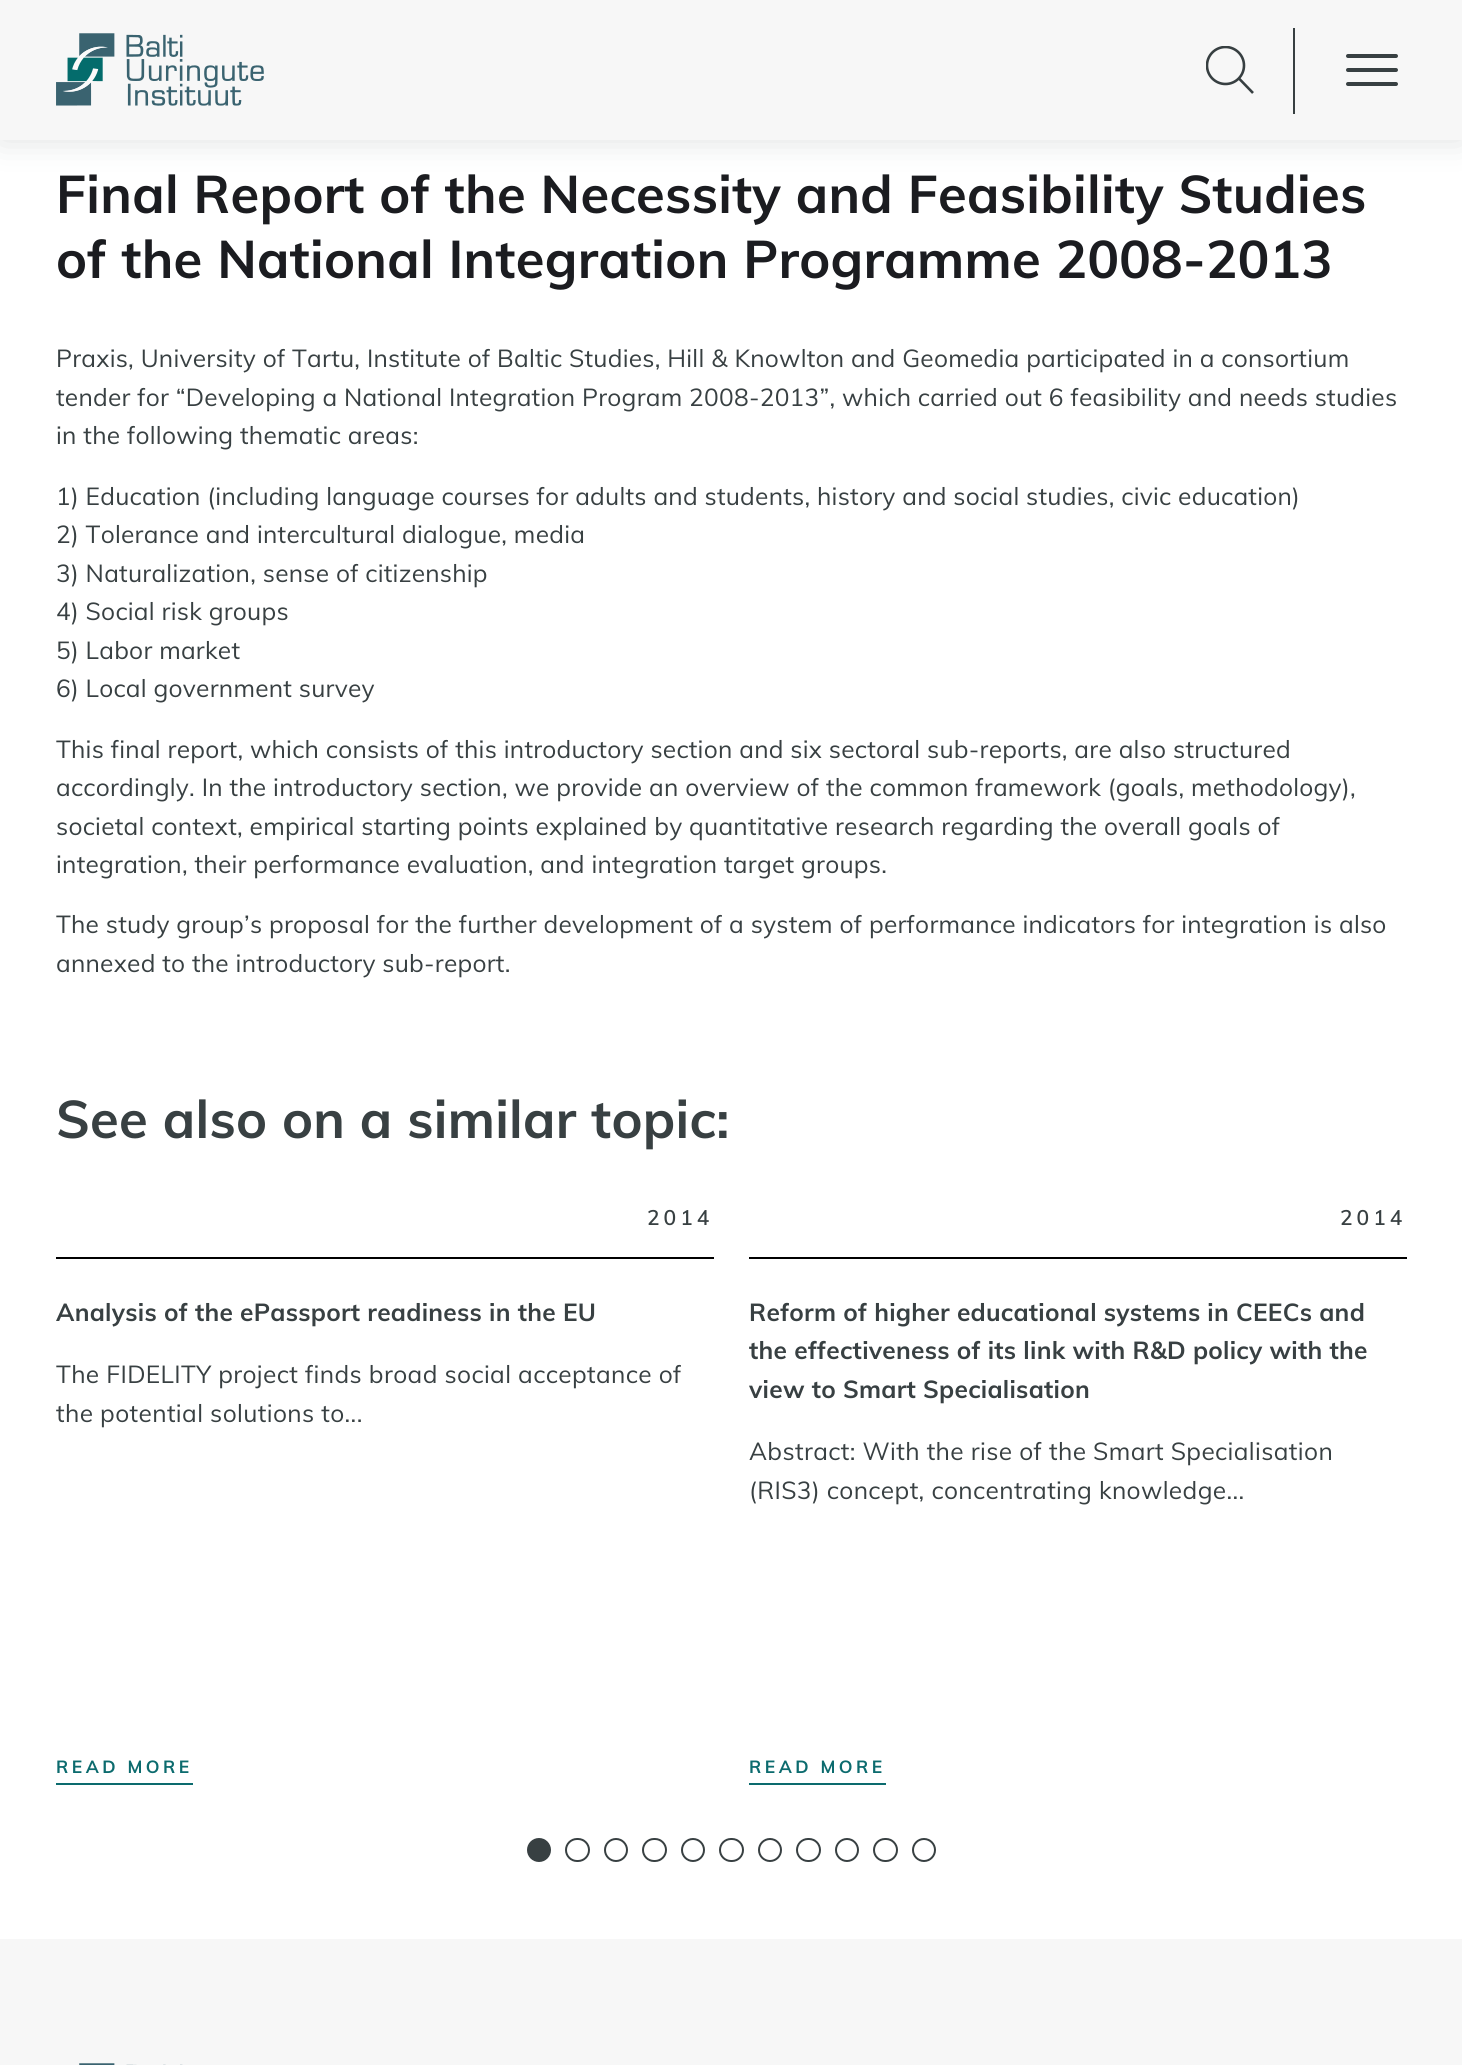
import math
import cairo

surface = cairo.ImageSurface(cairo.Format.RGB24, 1462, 2065)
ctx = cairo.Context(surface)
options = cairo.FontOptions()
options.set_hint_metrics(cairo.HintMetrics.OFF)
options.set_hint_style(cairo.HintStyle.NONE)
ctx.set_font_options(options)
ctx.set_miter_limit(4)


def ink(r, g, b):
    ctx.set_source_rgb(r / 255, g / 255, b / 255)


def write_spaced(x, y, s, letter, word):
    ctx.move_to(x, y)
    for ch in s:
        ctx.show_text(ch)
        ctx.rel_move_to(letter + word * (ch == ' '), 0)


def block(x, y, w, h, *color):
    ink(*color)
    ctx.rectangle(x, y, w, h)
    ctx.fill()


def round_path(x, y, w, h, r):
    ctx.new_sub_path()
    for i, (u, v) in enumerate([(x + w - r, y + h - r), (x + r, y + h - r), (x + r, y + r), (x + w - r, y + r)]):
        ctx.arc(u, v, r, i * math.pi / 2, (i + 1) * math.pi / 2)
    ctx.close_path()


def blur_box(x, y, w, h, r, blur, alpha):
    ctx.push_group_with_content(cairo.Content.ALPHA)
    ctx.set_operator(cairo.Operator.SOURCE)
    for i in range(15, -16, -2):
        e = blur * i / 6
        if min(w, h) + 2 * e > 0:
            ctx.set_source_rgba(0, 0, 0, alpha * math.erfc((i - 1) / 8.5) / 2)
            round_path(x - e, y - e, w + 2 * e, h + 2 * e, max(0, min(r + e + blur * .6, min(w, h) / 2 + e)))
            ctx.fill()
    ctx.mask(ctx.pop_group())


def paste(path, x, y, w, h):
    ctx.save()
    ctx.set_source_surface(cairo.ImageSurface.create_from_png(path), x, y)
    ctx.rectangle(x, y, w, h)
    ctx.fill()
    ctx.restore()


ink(255, 255, 255)
ctx.paint()
ink(56, 64, 66)
blur_box(0, 0, 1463, 140, 0, 17.5, 0.16)
block(0, 0, 1462, 140, 247, 247, 247)
paste("pic1.png", 56, 33, 208, 73)
ctx.save()
ctx.rectangle(1206, 46, 49, 49)
ctx.clip()
ctx.arc(1225.5, 65.5, 18.5, 0, 2 * math.pi)
ink(55, 63, 65)
ctx.set_line_width(2.6)
ctx.stroke()
ctx.restore()
ctx.new_path()
ctx.move_to(1238.5, 78)
ctx.line_to(1253, 93)
ink(55, 63, 65)
ctx.set_line_width(2.6)
ctx.stroke()
block(1293, 28, 2, 86, 55, 63, 65)
ink(56, 64, 66)
round_path(1346, 54, 52, 4, 2)
ctx.fill()
round_path(1346, 68, 52, 4, 2)
ctx.fill()
round_path(1346, 82, 52, 4, 2)
ctx.fill()
ctx.select_font_face("Muli", cairo.FontSlant.NORMAL, cairo.FontWeight.BOLD)
ctx.set_font_size(52.5)
ink(27, 28, 32)
write_spaced(56, 213, "Final Report of the Necessity and Feasibility Studies", 0.25, 0)
write_spaced(56, 278, "of the National Integration Programme 2008-2013", 0.25, 0)
ctx.select_font_face("Muli")
ctx.set_font_size(24.5)
ink(56, 64, 66)
write_spaced(56, 367, "Praxis, University of Tartu, Institute of Baltic Studies, Hill & Knowlton and Geomedia participated in a consortium", 0.25, 0)
write_spaced(56, 406, "tender for “Developing a National Integration Program 2008-2013”, which carried out 6 feasibility and needs studies", 0.25, 0)
write_spaced(56, 444, "in the following thematic areas:", 0.25, 0)
write_spaced(56, 505, "1) Education (including language courses for adults and students, history and social studies, civic education)", 0.25, 0)
write_spaced(56, 543, "2) Tolerance and intercultural dialogue, media", 0.25, 0)
write_spaced(56, 582, "3) Naturalization, sense of citizenship", 0.25, 0)
write_spaced(56, 620, "4) Social risk groups", 0.25, 0)
write_spaced(56, 659, "5) Labor market", 0.25, 0)
write_spaced(56, 697, "6) Local government survey", 0.25, 0)
write_spaced(56, 758, "This final report, which consists of this introductory section and six sectoral sub-reports, are also structured", 0.25, 0)
write_spaced(56, 796, "accordingly. In the introductory section, we provide an overview of the common framework (goals, methodology),", 0.25, 0)
write_spaced(56, 835, "societal context, empirical starting points explained by quantitative research regarding the overall goals of", 0.25, 0)
write_spaced(56, 873, "integration, their performance evaluation, and integration target groups.", 0.25, 0)
write_spaced(56, 933, "The study group’s proposal for the further development of a system of performance indicators for integration is also", 0.25, 0)
write_spaced(56, 972, "annexed to the introductory sub-report.", 0.25, 0)
ctx.select_font_face("Muli", cairo.FontSlant.NORMAL, cairo.FontWeight.BOLD)
ctx.set_font_size(52.5)
write_spaced(56, 1138, "See also on a similar topic:", 0.25, 0)
block(56, 1257, 658, 2, 0, 0, 0)
ctx.select_font_face("Muli SemiBold")
ctx.set_font_size(21)
ink(56, 64, 66)
write_spaced(647, 1225, "2014", 4, 0)
ctx.select_font_face("Muli", cairo.FontSlant.NORMAL, cairo.FontWeight.BOLD)
ctx.set_font_size(24.5)
write_spaced(56, 1321, "Analysis of the ePassport readiness in the EU", 0.25, 0)
ctx.select_font_face("Muli")
write_spaced(56, 1383, "The FIDELITY project finds broad social acceptance of", 0.37, 0)
write_spaced(56, 1422, "the potential solutions to...", 0.37, 0)
ctx.select_font_face("Muli", cairo.FontSlant.NORMAL, cairo.FontWeight.BOLD)
ctx.set_font_size(17.5)
ink(12, 107, 110)
write_spaced(56, 1773, "READ MORE", 3.5, 0)
block(56, 1783, 137, 2, 12, 107, 110)
block(749, 1257, 658, 2, 0, 0, 0)
ctx.select_font_face("Muli SemiBold")
ctx.set_font_size(21)
ink(56, 64, 66)
write_spaced(1340, 1225, "2014", 4, 0)
ctx.select_font_face("Muli", cairo.FontSlant.NORMAL, cairo.FontWeight.BOLD)
ctx.set_font_size(24.5)
write_spaced(749, 1321, "Reform of higher educational systems in CEECs and", 0.25, 0)
write_spaced(749, 1359, "the effectiveness of its link with R&D policy with the", 0.25, 0)
write_spaced(749, 1398, "view to Smart Specialisation", 0.25, 0)
ctx.select_font_face("Muli")
write_spaced(749, 1460, "Abstract: With the rise of the Smart Specialisation", 0.37, 0)
write_spaced(749, 1499, "(RIS3) concept, concentrating knowledge...", 0.37, 0)
ctx.select_font_face("Muli", cairo.FontSlant.NORMAL, cairo.FontWeight.BOLD)
ctx.set_font_size(17.5)
ink(12, 107, 110)
write_spaced(749, 1773, "READ MORE", 3.5, 0)
block(749, 1783, 137, 2, 12, 107, 110)
ink(56, 64, 66)
ctx.new_path()
ctx.arc(539, 1850, 11, 0, 2 * math.pi)
ctx.fill_preserve()
ctx.set_line_width(2)
ctx.stroke()
round_path(566, 1839, 23, 22, 11)
ctx.stroke()
ctx.arc(616, 1850, 11, 0, 2 * math.pi)
ctx.stroke()
round_path(643, 1839, 23, 22, 11)
ctx.stroke()
ctx.arc(693, 1850, 11, 0, 2 * math.pi)
ctx.stroke()
round_path(720, 1839, 23, 22, 11)
ctx.stroke()
ctx.arc(770, 1850, 11, 0, 2 * math.pi)
ctx.stroke()
round_path(797, 1839, 23, 22, 11)
ctx.stroke()
ctx.arc(847, 1850, 11, 0, 2 * math.pi)
ctx.stroke()
round_path(874, 1839, 23, 22, 11)
ctx.stroke()
ctx.arc(924, 1850, 11, 0, 2 * math.pi)
ctx.stroke()
block(0, 1939, 1462, 126, 247, 247, 247)
paste("pic2.png", 79, 2063, 104, 2)
surface.write_to_png("screenshot.png")
